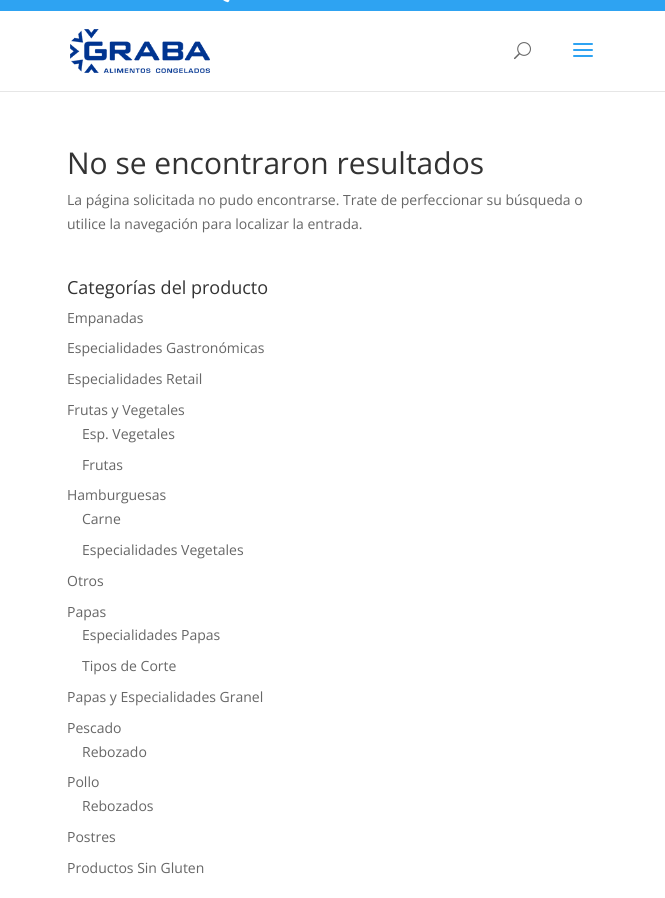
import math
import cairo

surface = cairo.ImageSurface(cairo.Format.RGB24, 665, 898)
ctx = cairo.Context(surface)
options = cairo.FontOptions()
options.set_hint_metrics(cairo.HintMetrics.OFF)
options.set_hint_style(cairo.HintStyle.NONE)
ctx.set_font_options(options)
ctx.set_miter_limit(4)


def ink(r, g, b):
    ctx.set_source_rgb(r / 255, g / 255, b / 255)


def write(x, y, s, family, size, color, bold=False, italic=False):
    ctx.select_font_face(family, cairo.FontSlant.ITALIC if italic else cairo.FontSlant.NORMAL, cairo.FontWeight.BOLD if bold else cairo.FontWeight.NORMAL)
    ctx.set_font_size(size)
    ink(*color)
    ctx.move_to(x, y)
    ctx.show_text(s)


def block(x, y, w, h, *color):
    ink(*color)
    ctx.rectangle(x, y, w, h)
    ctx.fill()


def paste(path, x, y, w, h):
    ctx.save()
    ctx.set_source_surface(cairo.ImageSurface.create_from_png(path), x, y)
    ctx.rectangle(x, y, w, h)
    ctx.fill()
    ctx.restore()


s1 = dict(family="Open Sans", size=30, color=(51, 51, 51))
s2 = dict(family="Open Sans", size=14, color=(102, 102, 102))
s3 = dict(family="Open Sans", size=18, color=(51, 51, 51))

ink(255, 255, 255)
ctx.paint()
block(0, 0, 665, 11, 46, 163, 242)
paste("pic1.png", 223, 0, 7, 3)
block(0, 91, 665, 1, 230, 230, 230)
paste("pic2.png", 70, 29, 140, 44)
paste("pic3.png", 514, 42, 17, 18)
paste("pic4.png", 573, 43, 20, 14)
write(67, 174, "No se encontraron resultados", **s1)
write(67, 205, "La página solicitada no pudo encontrarse. Trate de perfeccionar su búsqueda o", **s2)
write(67, 229, "utilice la navegación para localizar la entrada.", **s2)
write(67, 294, "Categorías del producto", **s3)
write(67, 323, "Empanadas", **s2)
write(67, 353, "Especialidades Gastronómicas", **s2)
write(67, 384, "Especialidades Retail", **s2)
write(67, 415, "Frutas y Vegetales", **s2)
write(82, 439, "Esp. Vegetales", **s2)
write(82, 470, "Frutas", **s2)
write(67, 500, "Hamburguesas", **s2)
write(82, 524, "Carne", **s2)
write(82, 555, "Especialidades Vegetales", **s2)
write(67, 586, "Otros", **s2)
write(67, 617, "Papas", **s2)
write(82, 640, "Especialidades Papas", **s2)
write(82, 671, "Tipos de Corte", **s2)
write(67, 702, "Papas y Especialidades Granel", **s2)
write(67, 733, "Pescado", **s2)
write(82, 757, "Rebozado", **s2)
write(67, 787, "Pollo", **s2)
write(82, 811, "Rebozados", **s2)
write(67, 842, "Postres", **s2)
write(67, 873, "Productos Sin Gluten", **s2)
surface.write_to_png("screenshot.png")
